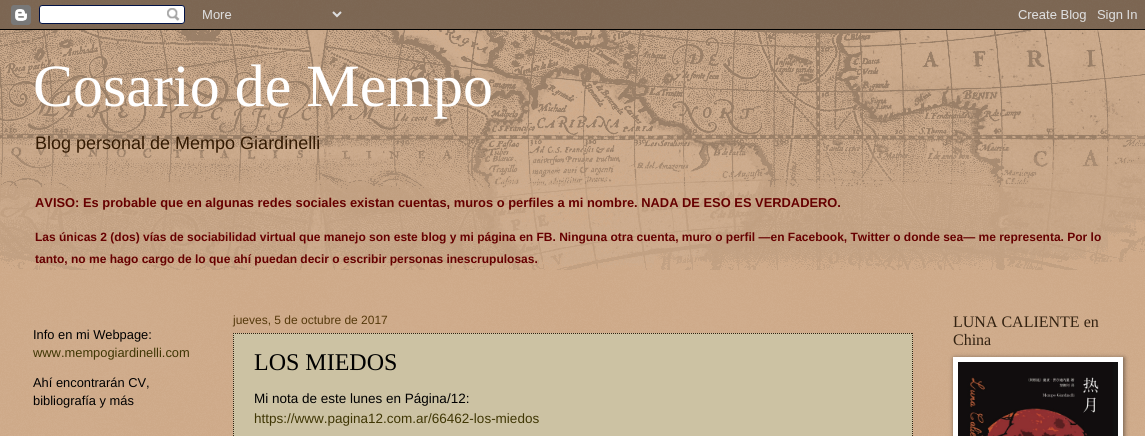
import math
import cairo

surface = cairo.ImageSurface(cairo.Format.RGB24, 1145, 436)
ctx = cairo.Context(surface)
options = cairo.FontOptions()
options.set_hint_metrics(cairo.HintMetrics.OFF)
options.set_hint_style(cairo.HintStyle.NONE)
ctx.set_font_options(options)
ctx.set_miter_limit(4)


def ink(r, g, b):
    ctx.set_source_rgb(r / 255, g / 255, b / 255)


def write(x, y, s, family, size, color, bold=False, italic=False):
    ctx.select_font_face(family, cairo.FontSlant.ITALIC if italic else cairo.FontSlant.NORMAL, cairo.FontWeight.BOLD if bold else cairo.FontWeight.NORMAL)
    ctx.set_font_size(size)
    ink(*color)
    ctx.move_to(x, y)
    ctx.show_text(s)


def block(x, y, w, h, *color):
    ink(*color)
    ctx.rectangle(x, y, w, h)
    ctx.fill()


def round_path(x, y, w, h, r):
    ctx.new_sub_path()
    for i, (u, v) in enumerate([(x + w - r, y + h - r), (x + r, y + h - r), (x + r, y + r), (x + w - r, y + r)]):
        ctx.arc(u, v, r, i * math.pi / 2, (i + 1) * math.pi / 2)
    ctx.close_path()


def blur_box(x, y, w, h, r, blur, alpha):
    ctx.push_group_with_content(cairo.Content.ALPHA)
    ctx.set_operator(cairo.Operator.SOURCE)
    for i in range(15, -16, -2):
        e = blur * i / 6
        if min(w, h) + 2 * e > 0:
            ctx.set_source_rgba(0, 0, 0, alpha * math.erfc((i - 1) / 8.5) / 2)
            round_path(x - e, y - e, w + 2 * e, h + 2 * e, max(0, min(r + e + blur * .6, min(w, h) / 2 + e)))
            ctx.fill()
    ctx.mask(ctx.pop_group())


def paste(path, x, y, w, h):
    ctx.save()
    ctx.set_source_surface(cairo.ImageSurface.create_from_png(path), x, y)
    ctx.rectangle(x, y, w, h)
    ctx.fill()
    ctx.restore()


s1 = dict(family="Liberation Serif", size=60, color=(255, 255, 255))
s2 = dict(family="Liberation Sans", size=18, color=(51, 26, 2))
s3 = dict(family="Liberation Sans", size=12.88, color=(102, 0, 0), bold=True)
s4 = dict(family="Liberation Sans", size=12, color=(102, 0, 0), bold=True)
s5 = dict(family="Liberation Sans", size=12.88, color=(0, 0, 0))
s6 = dict(family="Liberation Sans", size=12.88, color=(63, 54, 4))
s7 = dict(family="Liberation Sans", size=12, color=(85, 57, 12))
s8 = dict(family="Liberation Serif", size=24, color=(0, 0, 0))
s9 = dict(family="Liberation Sans", size=13.5, color=(0, 0, 0))
s10 = dict(family="Liberation Sans", size=13.5, color=(63, 54, 4))
s11 = dict(family="Liberation Serif", size=16, color=(51, 34, 17))

ink(199, 157, 119)
ctx.paint()
paste("pic1.png", 0, 0, 1145, 436)
paste("pic2.png", 0, 0, 1145, 30)
paste("pic3.png", 0, 30, 1145, 240)
write(33, 106, "Cosario de Mempo", **s1)
write(35, 149, "Blog personal de Mempo Giardinelli", **s2)
write(35, 207, "AVISO: Es probable que en algunas redes sociales existan cuentas, muros o perfiles a mi nombre. NADA DE ESO ES VERDADERO.", **s3)
write(35, 241, "Las únicas 2 (dos) vías de sociabilidad virtual que manejo son este blog y mi página en FB. Ninguna otra cuenta, muro o perfil —en Facebook, Twitter o donde sea— me representa. Por lo", **s4)
write(35, 263, "tanto, no me hago cargo de lo que ahí puedan decir o escribir personas inescrupulosas.", **s4)
write(33, 339, "Info en mi Webpage:", **s5)
write(33, 357, "www.mempogiardinelli.com", **s6)
write(33, 387, "Ahí encontrarán CV,", **s5)
write(33, 405, "bibliografía y más", **s5)
write(233, 324, "jueves, 5 de octubre de 2017", **s7)
block(233, 333, 680, 103, 204, 194, 163)
ctx.new_path()
ctx.move_to(233, 333.5)
ctx.line_to(913, 333.5)
ink(51, 34, 17)
ctx.set_line_width(1)
ctx.set_dash([1, 1])
ctx.stroke()
ctx.new_path()
ctx.move_to(912.5, 333)
ctx.line_to(912.5, 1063)
ctx.stroke()
ctx.new_path()
ctx.move_to(233.5, 333)
ctx.line_to(233.5, 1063)
ctx.stroke()
write(254, 370, "LOS MIEDOS", **s8)
write(254, 403, "Mi nota de este lunes en Página/12:", **s9)
write(254, 423, "https://www.pagina12.com.ar/66462-los-miedos", **s10)
write(953, 327, "LUNA CALIENTE en", **s11)
write(953, 345, "China", **s11)
ink(0, 0, 0)
blur_box(954, 358, 170, 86, 0, 2.5, 0.5)
block(953, 357, 170, 79, 255, 255, 255)
paste("pic4.png", 958, 362, 160, 74)
surface.write_to_png("screenshot.png")
